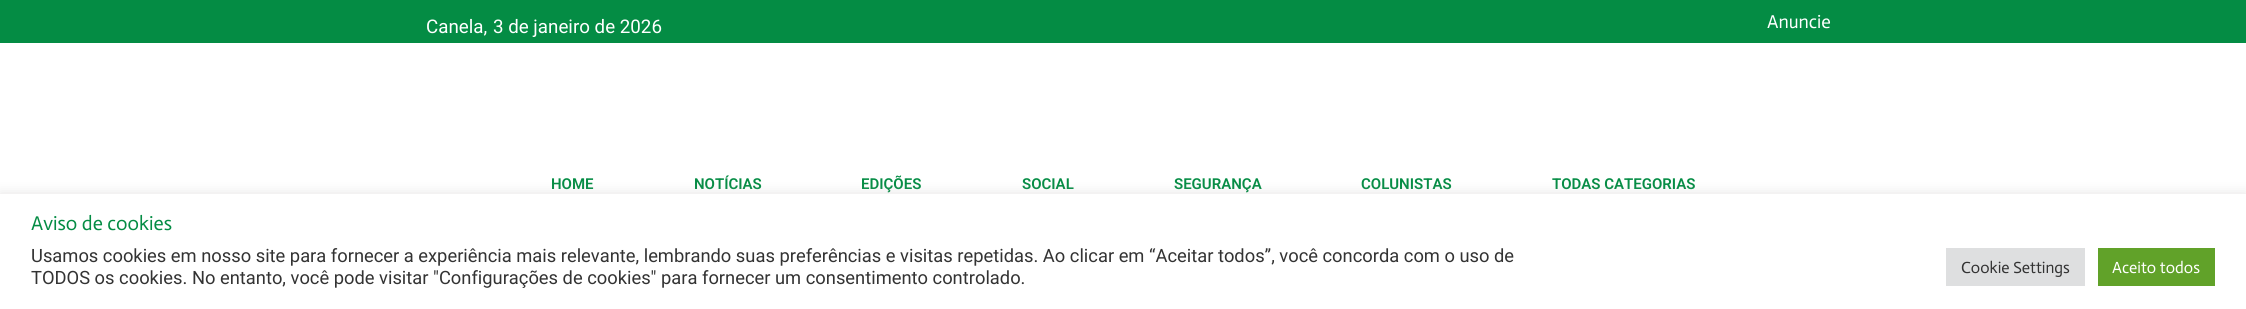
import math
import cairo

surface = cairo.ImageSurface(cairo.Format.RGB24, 2246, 309)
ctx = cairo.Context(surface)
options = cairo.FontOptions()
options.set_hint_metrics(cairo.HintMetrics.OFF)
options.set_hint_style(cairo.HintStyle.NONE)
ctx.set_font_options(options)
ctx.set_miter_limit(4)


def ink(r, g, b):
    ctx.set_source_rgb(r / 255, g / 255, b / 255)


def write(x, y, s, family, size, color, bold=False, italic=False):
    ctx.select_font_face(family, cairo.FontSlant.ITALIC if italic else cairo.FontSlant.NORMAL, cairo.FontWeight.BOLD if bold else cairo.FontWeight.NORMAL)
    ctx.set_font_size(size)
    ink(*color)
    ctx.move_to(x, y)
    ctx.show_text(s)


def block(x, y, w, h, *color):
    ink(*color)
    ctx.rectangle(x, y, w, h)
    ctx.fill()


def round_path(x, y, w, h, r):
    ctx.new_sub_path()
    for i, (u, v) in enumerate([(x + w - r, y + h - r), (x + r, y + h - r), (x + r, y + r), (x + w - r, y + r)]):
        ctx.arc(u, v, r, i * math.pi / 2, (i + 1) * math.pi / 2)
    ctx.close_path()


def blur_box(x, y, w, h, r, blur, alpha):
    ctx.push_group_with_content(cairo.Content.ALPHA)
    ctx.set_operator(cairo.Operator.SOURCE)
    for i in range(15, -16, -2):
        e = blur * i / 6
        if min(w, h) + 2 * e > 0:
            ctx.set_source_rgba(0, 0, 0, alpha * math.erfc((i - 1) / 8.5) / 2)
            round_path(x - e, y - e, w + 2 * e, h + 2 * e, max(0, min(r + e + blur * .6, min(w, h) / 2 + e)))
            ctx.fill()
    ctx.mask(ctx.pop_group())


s1 = dict(family="Roboto", size=18.75, color=(255, 255, 255))
s2 = dict(family="Actor", size=18.75, color=(255, 255, 255))
s3 = dict(family="Roboto SemiBold", size=15, color=(4, 140, 68))
s4 = dict(family="Actor", size=20, color=(4, 140, 68))
s5 = dict(family="Roboto", size=18.33, color=(51, 51, 51))
s6 = dict(family="Actor", size=16.25, color=(51, 51, 51))
s7 = dict(family="Actor", size=16.25, color=(255, 255, 255))

ink(255, 255, 255)
ctx.paint()
block(0, 0, 2246, 43, 4, 140, 68)
write(426, 33, "Canela,", **s1)
write(493, 33, "3 de janeiro de 2026", **s1)
write(1767, 28, "Anuncie", **s2)
write(551, 189, "HOME", **s3)
write(694, 189, "NOTÍCIAS", **s3)
write(861, 189, "EDIÇÕES", **s3)
write(1022, 189, "SOCIAL", **s3)
write(1174, 189, "SEGURANÇA", **s3)
write(1361, 189, "COLUNISTAS", **s3)
write(1552, 189, "TODAS CATEGORIAS", **s3)
ink(172, 171, 171)
blur_box(0, 193, 2246, 116, 0, 6, 0.3)
block(0, 194, 2246, 115, 255, 255, 255)
write(31, 230, "Aviso de cookies", **s4)
write(31, 262, "Usamos cookies em nosso site para fornecer a experiência mais relevante, lembrando suas preferências e visitas repetidas. Ao clicar em “Aceitar todos”, você concorda com o uso de", **s5)
write(31, 284, "TODOS os cookies. No entanto, você pode visitar \"Configurações de cookies\" para fornecer um consentimento controlado.", **s5)
block(1946, 248, 139, 38, 222, 223, 224)
write(1961, 273, "Cookie Settings", **s6)
block(2098, 248, 117, 38, 97, 162, 41)
write(2112, 273, "Aceito todos", **s7)
surface.write_to_png("screenshot.png")
